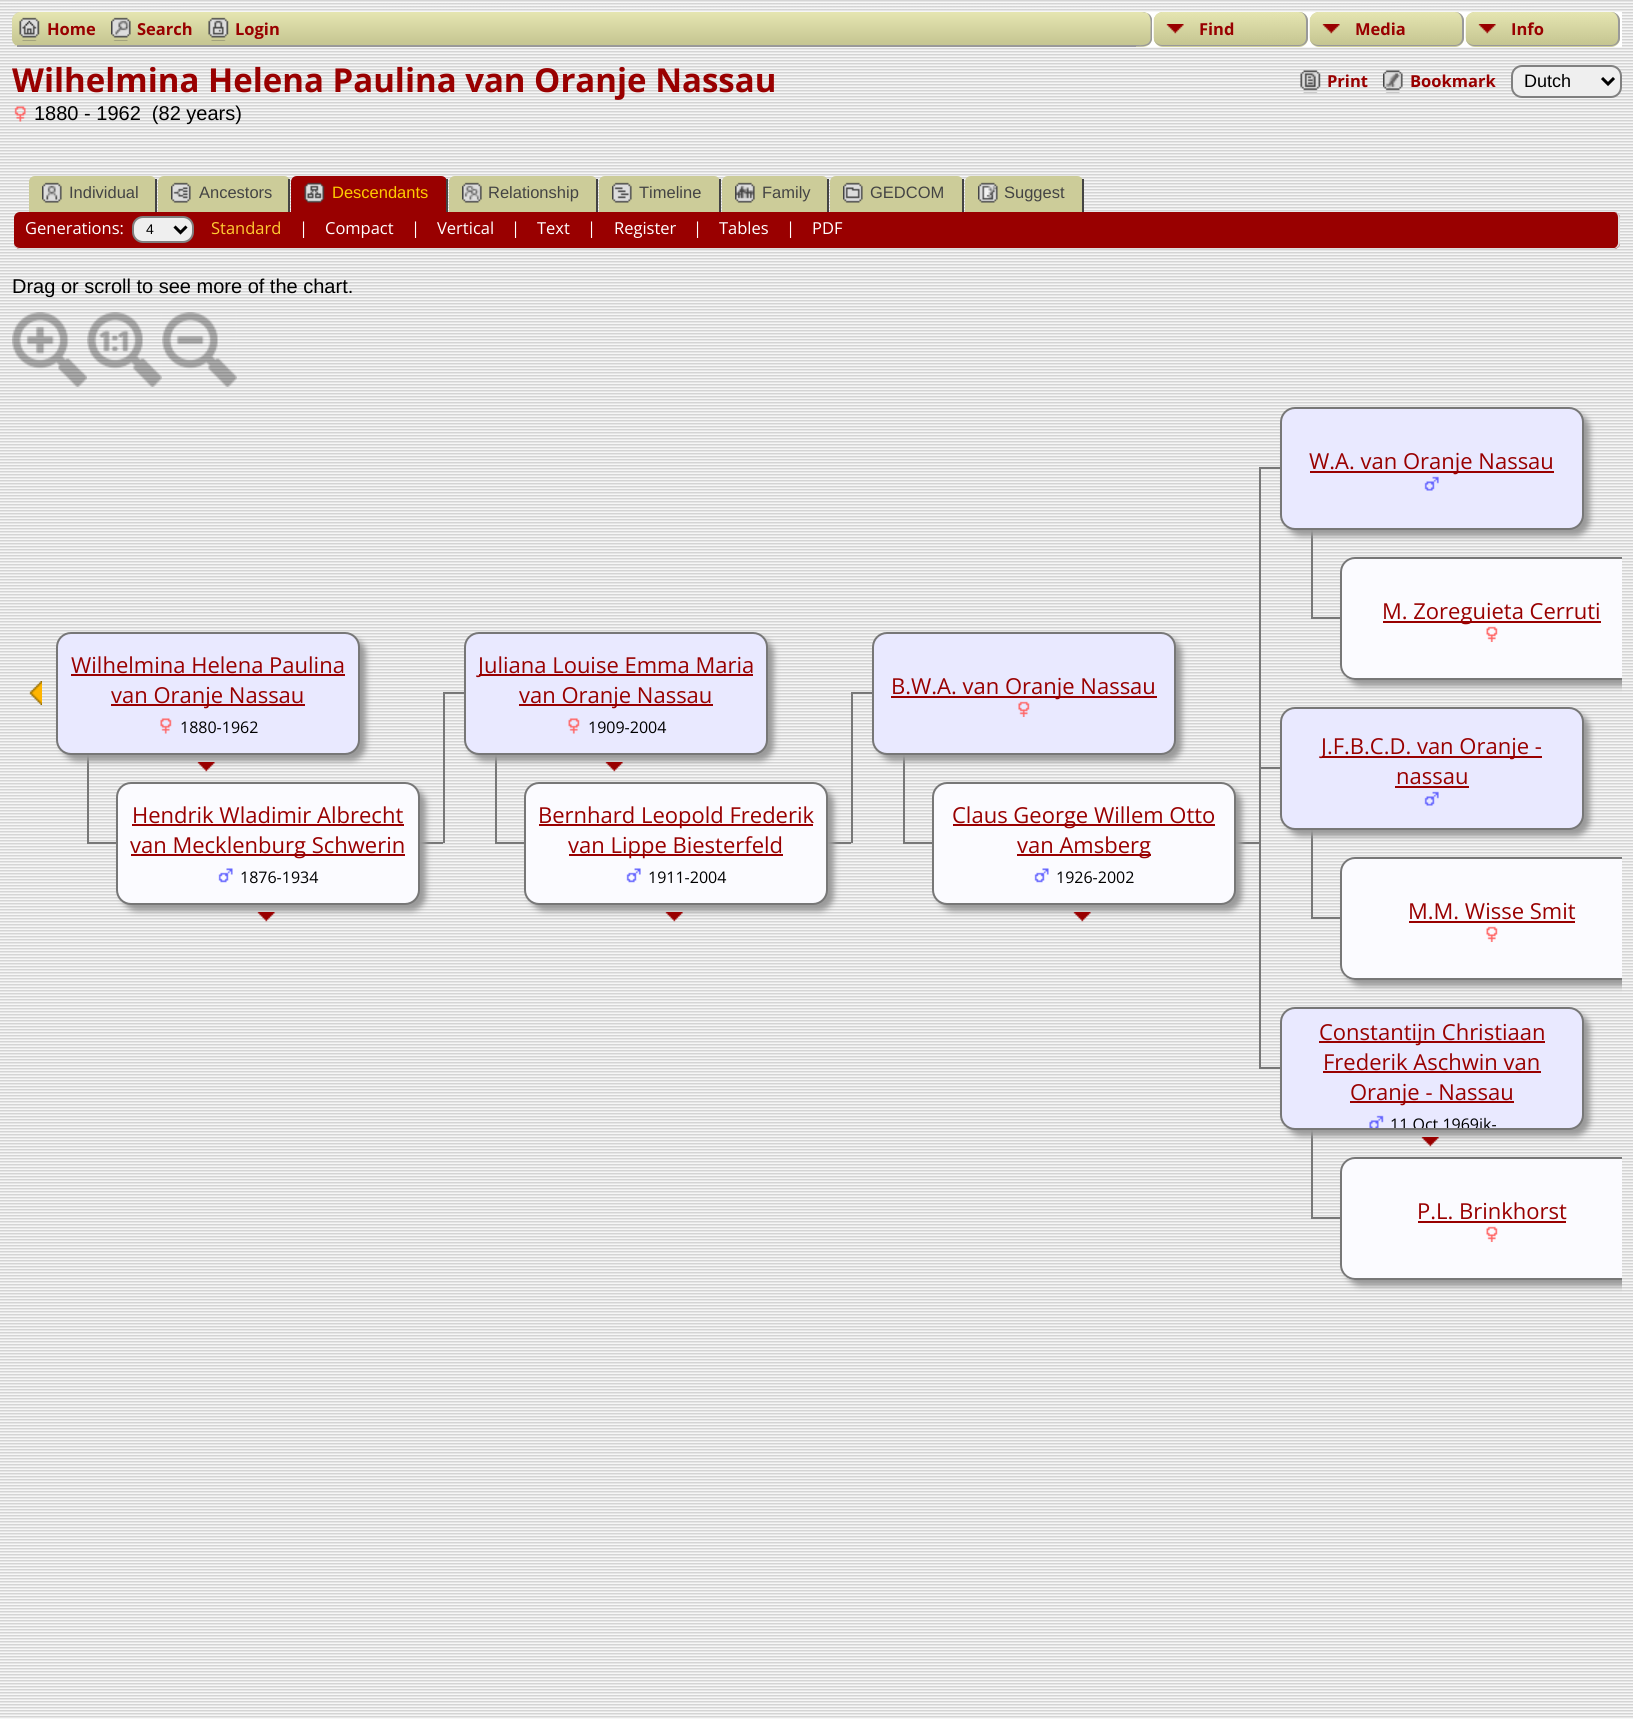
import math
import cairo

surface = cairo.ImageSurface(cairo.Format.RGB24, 1633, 1719)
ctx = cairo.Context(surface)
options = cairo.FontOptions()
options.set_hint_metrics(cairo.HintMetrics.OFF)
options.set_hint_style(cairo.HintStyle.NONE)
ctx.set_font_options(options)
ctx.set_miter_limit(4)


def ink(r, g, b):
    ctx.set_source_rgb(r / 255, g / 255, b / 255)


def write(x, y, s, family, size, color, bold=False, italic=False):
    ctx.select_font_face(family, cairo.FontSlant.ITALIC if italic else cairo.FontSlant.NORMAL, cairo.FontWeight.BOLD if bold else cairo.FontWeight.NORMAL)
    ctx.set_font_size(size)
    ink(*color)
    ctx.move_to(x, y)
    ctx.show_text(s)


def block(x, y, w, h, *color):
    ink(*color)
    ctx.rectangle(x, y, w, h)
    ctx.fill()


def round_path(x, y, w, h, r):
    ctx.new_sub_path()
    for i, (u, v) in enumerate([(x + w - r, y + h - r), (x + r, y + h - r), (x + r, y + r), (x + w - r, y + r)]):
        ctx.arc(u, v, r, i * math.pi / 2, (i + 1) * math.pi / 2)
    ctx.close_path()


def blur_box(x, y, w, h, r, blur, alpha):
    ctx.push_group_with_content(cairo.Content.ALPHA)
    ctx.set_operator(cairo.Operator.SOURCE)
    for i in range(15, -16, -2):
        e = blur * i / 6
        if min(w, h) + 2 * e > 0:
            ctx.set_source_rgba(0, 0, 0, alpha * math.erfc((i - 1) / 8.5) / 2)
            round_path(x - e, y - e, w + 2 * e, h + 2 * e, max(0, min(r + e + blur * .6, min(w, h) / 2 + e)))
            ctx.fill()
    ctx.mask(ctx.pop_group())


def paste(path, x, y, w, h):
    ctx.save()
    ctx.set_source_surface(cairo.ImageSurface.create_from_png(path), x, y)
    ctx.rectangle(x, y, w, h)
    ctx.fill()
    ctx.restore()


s1 = dict(family="Open Sans", size=16.5, color=(153, 0, 0), bold=True)
s2 = dict(family="Open Sans", size=33, color=(153, 0, 0), bold=True)
s3 = dict(family="Liberation Sans", size=18, color=(0, 0, 0))
s4 = dict(family="Liberation Sans", size=20, color=(0, 0, 0))
s5 = dict(family="Liberation Sans", size=16.5, color=(68, 68, 68))
s6 = dict(family="Liberation Sans", size=16.5, color=(255, 204, 0))
s7 = dict(family="Open Sans", size=16.5, color=(255, 255, 255))
s8 = dict(family="Liberation Sans", size=14, color=(0, 0, 0))
s9 = dict(family="Open Sans", size=16.5, color=(255, 204, 51))
s10 = dict(family="Open Sans", size=22, color=(153, 0, 0))
s11 = dict(family="Open Sans", size=16, color=(0, 0, 0))

ink(255, 255, 255)
ctx.paint()
paste("pic1.png", 0, 0, 1633, 1719)
ink(204, 204, 153)
round_path(12, 12, 1610, 35, 9)
ctx.fill()
ctx.save()
round_path(12, 12, 1610, 35, 9)
ctx.clip()
gradient = cairo.LinearGradient(817, 12, 817, 45)
gradient.add_color_stop_rgba(0, 0.898, 0.898, 0.694, 1)
gradient.add_color_stop_rgba(1, 0.773, 0.773, 0.569, 1)
ctx.set_source(gradient)
ctx.new_path()
ctx.move_to(21, 12)
ctx.line_to(1613, 12)
ctx.curve_to(1618, 12, 1622, 16, 1622, 21)
ctx.line_to(1622, 45)
ctx.line_to(12, 45)
ctx.line_to(12, 21)
ctx.curve_to(12, 16, 16, 12, 21, 12)
ctx.close_path()
ctx.fill()
gradient = cairo.LinearGradient(817, 45, 817, 78)
gradient.add_color_stop_rgba(0, 0.898, 0.898, 0.694, 1)
gradient.add_color_stop_rgba(1, 0.773, 0.773, 0.569, 1)
ctx.set_source(gradient)
ctx.rectangle(12, 45, 5, 1)
ctx.fill()
ctx.restore()
block(17, 45, 1119, 2, 153, 153, 153)
paste("pic2.png", 19, 17, 21, 24)
write(47, 35, "Home", **s1)
paste("pic3.png", 111, 17, 20, 24)
write(137, 35, "Search", **s1)
paste("pic4.png", 208, 17, 21, 24)
write(235, 35, "Login", **s1)
block(1143, 12, 479, 35, 255, 255, 255)
ctx.save()
ctx.new_path()
ctx.move_to(1136, 12)
ctx.line_to(1143, 12)
ctx.curve_to(1148, 12, 1152, 16, 1152, 21)
ctx.line_to(1152, 38)
ctx.curve_to(1152, 43, 1148, 47, 1143, 47)
ctx.line_to(1136, 47)
ctx.close_path()
ctx.clip()
gradient = cairo.LinearGradient(1143, 12, 1143, 45)
gradient.add_color_stop_rgba(0, 0.898, 0.898, 0.694, 1)
gradient.add_color_stop_rgba(1, 0.773, 0.773, 0.569, 1)
ctx.set_source(gradient)
ctx.rectangle(1136, 12, 16, 33)
ctx.fill()
gradient = cairo.LinearGradient(1143, 45, 1143, 78)
gradient.add_color_stop_rgba(0, 0.898, 0.898, 0.694, 1)
gradient.add_color_stop_rgba(1, 0.773, 0.773, 0.569, 1)
ctx.set_source(gradient)
ctx.rectangle(1136, 45, 16, 2)
ctx.fill()
ctx.restore()
ink(153, 153, 153)
ctx.set_fill_rule(cairo.FillRule.EVEN_ODD)
ctx.new_path()
ctx.move_to(1135.5, 12)
ctx.curve_to(1142, 12, 1150, 11, 1152, 19)
ctx.line_to(1152, 39.5)
ctx.curve_to(1150, 47.5, 1142, 46.5, 1135.5, 46.5)
ctx.close_path()
ctx.move_to(1135.5, 12)
ctx.line_to(1144.5, 12)
ctx.curve_to(1152, 14, 1150.5, 23.5, 1150.5, 29)
ctx.line_to(1150.5, 39)
ctx.curve_to(1149, 46.5, 1141, 45, 1135.5, 45)
ctx.close_path()
ctx.fill()
ink(204, 204, 153)
round_path(1154, 12, 154, 35, 9)
ctx.fill()
paste("pic5.png", 1153, 12, 154, 33)
ink(153, 153, 153)
ctx.new_path()
ctx.move_to(1162, 12)
ctx.line_to(1299, 12)
ctx.curve_to(1304, 12, 1308, 16, 1308, 21)
ctx.line_to(1308, 38)
ctx.curve_to(1308, 42, 1304, 46, 1299, 46)
ctx.line_to(1162, 46)
ctx.curve_to(1158, 46, 1154, 42, 1154, 38)
ctx.line_to(1154, 21)
ctx.curve_to(1154, 16, 1158, 12, 1162, 12)
ctx.close_path()
ctx.move_to(1162, 12)
ctx.line_to(1299, 12)
ctx.curve_to(1303, 12, 1306, 16, 1306, 21)
ctx.line_to(1306, 38)
ctx.curve_to(1306, 42, 1303, 45, 1299, 45)
ctx.line_to(1162, 45)
ctx.curve_to(1158, 45, 1154, 42, 1154, 38)
ctx.line_to(1154, 21)
ctx.curve_to(1154, 16, 1158, 12, 1162, 12)
ctx.close_path()
ctx.fill()
write(1199, 35, "Find", **s1)
ink(204, 204, 153)
round_path(1310, 12, 154, 35, 9)
ctx.fill()
paste("pic6.png", 1309, 12, 154, 33)
ink(153, 153, 153)
ctx.new_path()
ctx.move_to(1318, 12)
ctx.line_to(1455, 12)
ctx.curve_to(1460, 12, 1464, 16, 1464, 21)
ctx.line_to(1464, 38)
ctx.curve_to(1464, 42, 1460, 46, 1455, 46)
ctx.line_to(1318, 46)
ctx.curve_to(1314, 46, 1310, 42, 1310, 38)
ctx.line_to(1310, 21)
ctx.curve_to(1310, 16, 1314, 12, 1318, 12)
ctx.close_path()
ctx.move_to(1318, 12)
ctx.line_to(1455, 12)
ctx.curve_to(1459, 12, 1462, 16, 1462, 21)
ctx.line_to(1462, 38)
ctx.curve_to(1462, 42, 1459, 45, 1455, 45)
ctx.line_to(1318, 45)
ctx.curve_to(1314, 45, 1310, 42, 1310, 38)
ctx.line_to(1310, 21)
ctx.curve_to(1310, 16, 1314, 12, 1318, 12)
ctx.close_path()
ctx.fill()
write(1355, 35, "Media", **s1)
ink(204, 204, 153)
round_path(1466, 12, 154, 35, 9)
ctx.fill()
paste("pic7.png", 1465, 12, 154, 33)
ink(153, 153, 153)
ctx.new_path()
ctx.move_to(1474, 12)
ctx.line_to(1611, 12)
ctx.curve_to(1616, 12, 1620, 16, 1620, 21)
ctx.line_to(1620, 38)
ctx.curve_to(1620, 42, 1616, 46, 1611, 46)
ctx.line_to(1474, 46)
ctx.curve_to(1470, 46, 1466, 42, 1466, 38)
ctx.line_to(1466, 21)
ctx.curve_to(1466, 16, 1470, 12, 1474, 12)
ctx.close_path()
ctx.move_to(1474, 12)
ctx.line_to(1611, 12)
ctx.curve_to(1615, 12, 1618, 16, 1618, 21)
ctx.line_to(1618, 38)
ctx.curve_to(1618, 42, 1615, 45, 1611, 45)
ctx.line_to(1474, 45)
ctx.curve_to(1470, 45, 1466, 42, 1466, 38)
ctx.line_to(1466, 21)
ctx.curve_to(1466, 16, 1470, 12, 1474, 12)
ctx.close_path()
ctx.fill()
write(1511, 35, "Info", **s1)
write(12, 92, "Wilhelmina Helena Paulina van Oranje Nassau", **s2)
paste("pic8.png", 1300, 70, 21, 23)
write(1327, 87, "Print", **s1)
paste("pic9.png", 1383, 70, 20, 23)
write(1410, 87, "Bookmark", **s1)
ink(239, 239, 239)
round_path(1512, 66, 109, 31, 10)
ctx.fill_preserve()
ink(128, 128, 128)
ctx.stroke()
ctx.new_path()
ctx.move_to(1602, 78)
ctx.line_to(1608, 84)
ctx.line_to(1614, 78)
ink(0, 0, 0)
ctx.set_line_width(3)
ctx.stroke()
write(1524, 87, "Dutch", **s3)
paste("pic10.png", 14, 106, 12, 16)
write(34, 120, "1880 - 1962  (82 years)", **s4)
ink(204, 204, 153)
ctx.new_path()
ctx.move_to(35, 176)
ctx.line_to(150, 176)
ctx.curve_to(153.5, 176, 156, 178.5, 156, 182)
ctx.line_to(156, 212)
ctx.line_to(29, 212)
ctx.line_to(29, 182)
ctx.curve_to(29, 178.5, 31.5, 176, 35, 176)
ctx.close_path()
ctx.fill()
block(155, 179, 2, 33, 68, 68, 68)
paste("pic11.png", 42, 182, 20, 21)
write(69, 198, "Individual", **s5)
ink(204, 204, 153)
ctx.new_path()
ctx.move_to(164, 176)
ctx.line_to(284, 176)
ctx.curve_to(287.5, 176, 290, 178.5, 290, 182)
ctx.line_to(290, 212)
ctx.line_to(158, 212)
ctx.line_to(158, 182)
ctx.curve_to(158, 178.5, 160.5, 176, 164, 176)
ctx.close_path()
ctx.fill()
block(288, 179, 2, 33, 68, 68, 68)
paste("pic12.png", 171, 182, 20, 21)
write(199, 198, "Ancestors", **s5)
ink(153, 0, 0)
ctx.new_path()
ctx.move_to(297, 176)
ctx.line_to(441, 176)
ctx.curve_to(444.5, 176, 447, 178.5, 447, 182)
ctx.line_to(447, 212)
ctx.line_to(291, 212)
ctx.line_to(291, 182)
ctx.curve_to(291, 178.5, 293.5, 176, 297, 176)
ctx.close_path()
ctx.fill()
block(446, 179, 2, 33, 68, 68, 68)
paste("pic13.png", 304, 182, 21, 21)
write(332, 198, "Descendants", **s6)
ink(204, 204, 153)
ctx.new_path()
ctx.move_to(455, 176)
ctx.line_to(591, 176)
ctx.curve_to(594.5, 176, 597, 178.5, 597, 182)
ctx.line_to(597, 212)
ctx.line_to(449, 212)
ctx.line_to(449, 182)
ctx.curve_to(449, 178.5, 451.5, 176, 455, 176)
ctx.close_path()
ctx.fill()
block(596, 179, 2, 33, 68, 68, 68)
paste("pic14.png", 462, 182, 20, 21)
write(488, 198, "Relationship", **s5)
ink(204, 204, 153)
ctx.new_path()
ctx.move_to(605, 176)
ctx.line_to(714, 176)
ctx.curve_to(717.5, 176, 720, 178.5, 720, 182)
ctx.line_to(720, 212)
ctx.line_to(599, 212)
ctx.line_to(599, 182)
ctx.curve_to(599, 178.5, 601.5, 176, 605, 176)
ctx.close_path()
ctx.fill()
block(719, 179, 2, 33, 68, 68, 68)
paste("pic15.png", 612, 182, 20, 21)
write(639, 198, "Timeline", **s5)
ink(204, 204, 153)
ctx.new_path()
ctx.move_to(728, 176)
ctx.line_to(822, 176)
ctx.curve_to(825.5, 176, 828, 178.5, 828, 182)
ctx.line_to(828, 212)
ctx.line_to(722, 212)
ctx.line_to(722, 182)
ctx.curve_to(722, 178.5, 724.5, 176, 728, 176)
ctx.close_path()
ctx.fill()
block(827, 179, 2, 33, 68, 68, 68)
paste("pic16.png", 735, 182, 20, 21)
write(762, 198, "Family", **s5)
ink(204, 204, 153)
ctx.new_path()
ctx.move_to(836, 176)
ctx.line_to(957, 176)
ctx.curve_to(960.5, 176, 963, 178.5, 963, 182)
ctx.line_to(963, 212)
ctx.line_to(830, 212)
ctx.line_to(830, 182)
ctx.curve_to(830, 178.5, 832.5, 176, 836, 176)
ctx.close_path()
ctx.fill()
block(962, 179, 2, 33, 68, 68, 68)
paste("pic17.png", 843, 182, 20, 21)
write(870, 198, "GEDCOM", **s5)
ink(204, 204, 153)
ctx.new_path()
ctx.move_to(971, 176)
ctx.line_to(1077, 176)
ctx.curve_to(1080.5, 176, 1083, 178.5, 1083, 182)
ctx.line_to(1083, 212)
ctx.line_to(965, 212)
ctx.line_to(965, 182)
ctx.curve_to(965, 178.5, 967.5, 176, 971, 176)
ctx.close_path()
ctx.fill()
block(1082, 179, 2, 33, 68, 68, 68)
paste("pic18.png", 978, 182, 20, 21)
write(1004, 198, "Suggest", **s5)
ink(153, 0, 0)
round_path(14, 212, 1606, 37, 6)
ctx.fill()
ink(221, 221, 221)
ctx.new_path()
ctx.move_to(20, 212)
ctx.line_to(1614, 212)
ctx.curve_to(1617, 212, 1620, 214, 1620, 218)
ctx.line_to(1620, 243)
ctx.curve_to(1620, 246, 1617, 249, 1614, 249)
ctx.line_to(20, 249)
ctx.curve_to(16, 249, 14, 246, 14, 243)
ctx.line_to(14, 218)
ctx.curve_to(14, 214, 16, 212, 20, 212)
ctx.close_path()
ctx.move_to(20, 212)
ctx.line_to(1614, 212)
ctx.curve_to(1616, 212, 1618, 214, 1618, 218)
ctx.line_to(1618, 243)
ctx.curve_to(1618, 245, 1616, 248, 1614, 248)
ctx.line_to(20, 248)
ctx.curve_to(16, 248, 14, 245, 14, 243)
ctx.line_to(14, 218)
ctx.curve_to(14, 214, 16, 212, 20, 212)
ctx.close_path()
ctx.fill()
write(25, 234, "Generations:", **s7)
ink(239, 239, 239)
round_path(133, 217, 60, 25, 10)
ctx.fill_preserve()
ink(128, 128, 128)
ctx.set_line_width(2)
ctx.stroke()
ctx.new_path()
ctx.move_to(174.5, 226.5)
ctx.line_to(180.5, 232.5)
ctx.line_to(186.5, 226.5)
ink(0, 0, 0)
ctx.set_line_width(3)
ctx.stroke()
write(146, 234, "4", **s8)
write(211, 234, "Standard", **s9)
write(299, 234, "|", **s7)
write(325, 234, "Compact", **s7)
write(411, 234, "|", **s7)
write(437, 234, "Vertical", **s7)
write(511, 234, "|", **s7)
write(537, 234, "Text", **s7)
write(587, 234, "|", **s7)
write(614, 234, "Register", **s7)
write(693, 234, "|", **s7)
write(719, 234, "Tables", **s7)
write(786, 234, "|", **s7)
write(812, 234, "PDF", **s7)
write(12, 293, "Drag or scroll to see more of the chart.", **s4)
paste("pic19.png", 12, 312, 75, 75)
paste("pic20.png", 87, 312, 75, 75)
paste("pic21.png", 162, 312, 75, 75)
block(1259, 467, 25, 2, 119, 119, 119)
block(1311, 527, 2, 90, 119, 119, 119)
ink(153, 153, 153)
blur_box(1286, 413, 304, 123, 15, 3, 1)
ink(233, 233, 255)
round_path(1281, 408, 302, 121, 14)
ctx.fill_preserve()
ink(119, 119, 119)
ctx.set_line_width(2)
ctx.stroke()
block(1310, 471, 244, 2, 153, 0, 0)
write(1309, 469, "W.A. van Oranje Nassau", **s10)
paste("pic22.png", 1424, 476, 15, 15)
block(1259, 767, 25, 2, 119, 119, 119)
block(1259, 467, 2, 600, 119, 119, 119)
block(1311, 617, 33, 2, 119, 119, 119)
ctx.save()
ctx.set_fill_rule(cairo.FillRule.WINDING)
ctx.rectangle(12, 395, 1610, 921)
ctx.clip()
ink(153, 153, 153)
blur_box(1346, 563, 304, 123, 15, 3, 1)
ctx.restore()
ink(251, 251, 255)
ctx.new_path()
ctx.move_to(1355, 557)
ctx.line_to(1622, 557)
ctx.line_to(1622, 680)
ctx.line_to(1355, 680)
ctx.curve_to(1346.5, 680, 1340, 673.5, 1340, 665)
ctx.line_to(1340, 572)
ctx.curve_to(1340, 563.5, 1346.5, 557, 1355, 557)
ctx.close_path()
ctx.fill()
ctx.save()
ctx.set_fill_rule(cairo.FillRule.WINDING)
ctx.rectangle(12, 395, 1610, 921)
ctx.clip()
round_path(1341, 558, 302, 121, 14)
ink(119, 119, 119)
ctx.stroke()
ctx.restore()
block(1383, 621, 218, 2, 153, 0, 0)
write(1382, 619, "M. Zoreguieta Cerruti", **s10)
paste("pic23.png", 1486, 626, 12, 16)
paste("pic24.png", 29, 681, 13, 24)
block(87, 752, 2, 90, 119, 119, 119)
ink(153, 153, 153)
blur_box(62, 638, 304, 123, 15, 3, 1)
ink(233, 233, 255)
round_path(57, 633, 302, 121, 14)
ctx.fill_preserve()
ink(119, 119, 119)
ctx.stroke()
write(71, 673, "Wilhelmina Helena Paulina", **s10)
block(71, 674, 274, 2, 153, 0, 0)
block(111, 704, 194, 2, 153, 0, 0)
write(111, 703, "van Oranje Nassau", **s10)
paste("pic25.png", 160, 718, 12, 16)
write(180, 733, "1880-1962", **s11)
block(443, 692, 25, 2, 119, 119, 119)
block(495, 752, 2, 90, 119, 119, 119)
ink(153, 153, 153)
blur_box(470, 638, 304, 123, 15, 3, 1)
ink(233, 233, 255)
round_path(465, 633, 302, 121, 14)
ctx.fill_preserve()
ink(119, 119, 119)
ctx.stroke()
block(479, 674, 274, 2, 153, 0, 0)
write(478, 673, "Juliana Louise Emma Maria", **s10)
block(519, 704, 194, 2, 153, 0, 0)
write(519, 703, "van Oranje Nassau", **s10)
paste("pic26.png", 568, 718, 12, 16)
write(588, 733, "1909-2004", **s11)
block(851, 692, 25, 2, 119, 119, 119)
block(903, 752, 2, 90, 119, 119, 119)
ink(153, 153, 153)
blur_box(878, 638, 304, 123, 15, 3, 1)
ink(233, 233, 255)
round_path(873, 633, 302, 121, 14)
ctx.fill_preserve()
ink(119, 119, 119)
ctx.stroke()
block(891, 696, 266, 2, 153, 0, 0)
write(891, 694, "B.W.A. van Oranje Nassau", **s10)
paste("pic27.png", 1018, 701, 12, 16)
block(443, 692, 2, 151, 119, 119, 119)
paste("pic28.png", 197, 762, 18, 10)
paste("pic29.png", 605, 762, 18, 10)
block(851, 692, 2, 151, 119, 119, 119)
block(1311, 827, 2, 90, 119, 119, 119)
ink(153, 153, 153)
blur_box(1286, 713, 304, 123, 15, 3, 1)
ink(233, 233, 255)
round_path(1281, 708, 302, 121, 14)
ctx.fill_preserve()
ink(119, 119, 119)
ctx.stroke()
block(1322, 756, 220, 2, 153, 0, 0)
write(1321, 754, "J.F.B.C.D. van Oranje -", **s10)
write(1396, 784, "nassau", **s10)
block(1395, 786, 74, 2, 153, 0, 0)
paste("pic22.png", 1424, 791, 15, 15)
block(87, 842, 33, 2, 119, 119, 119)
block(419, 842, 24, 2, 119, 119, 119)
ink(153, 153, 153)
blur_box(122, 788, 304, 123, 15, 3, 1)
ink(251, 251, 255)
round_path(117, 783, 302, 121, 14)
ctx.fill_preserve()
ink(119, 119, 119)
ctx.stroke()
write(132, 823, "Hendrik Wladimir Albrecht", **s10)
block(132, 824, 272, 2, 153, 0, 0)
block(131, 854, 274, 2, 153, 0, 0)
write(130, 853, "van Mecklenburg Schwerin", **s10)
paste("pic30.png", 218, 868, 15, 15)
write(240, 883, "1876-1934", **s11)
block(495, 842, 33, 2, 119, 119, 119)
block(827, 842, 24, 2, 119, 119, 119)
ink(153, 153, 153)
blur_box(530, 788, 304, 123, 15, 3, 1)
ink(251, 251, 255)
round_path(525, 783, 302, 121, 14)
ctx.fill_preserve()
ink(119, 119, 119)
ctx.stroke()
block(539, 824, 274, 2, 153, 0, 0)
write(538, 823, "Bernhard Leopold Frederik", **s10)
block(569, 854, 214, 2, 153, 0, 0)
write(568, 853, "van Lippe Biesterfeld", **s10)
paste("pic31.png", 626, 868, 15, 15)
write(648, 883, "1911-2004", **s11)
block(903, 842, 33, 2, 119, 119, 119)
block(1235, 842, 24, 2, 119, 119, 119)
ink(153, 153, 153)
blur_box(938, 788, 304, 123, 15, 3, 1)
ink(251, 251, 255)
round_path(933, 783, 302, 121, 14)
ctx.fill_preserve()
ink(119, 119, 119)
ctx.stroke()
block(953, 824, 262, 2, 153, 0, 0)
write(952, 823, "Claus George Willem Otto", **s10)
block(1017, 854, 134, 2, 153, 0, 0)
write(1017, 853, "van Amsberg", **s10)
paste("pic30.png", 1034, 868, 15, 15)
write(1056, 883, "1926-2002", **s11)
paste("pic32.png", 257, 912, 18, 10)
paste("pic33.png", 665, 912, 18, 10)
paste("pic32.png", 1073, 912, 18, 10)
block(1311, 917, 33, 2, 119, 119, 119)
ctx.save()
ctx.set_fill_rule(cairo.FillRule.WINDING)
ctx.rectangle(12, 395, 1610, 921)
ctx.clip()
ink(153, 153, 153)
blur_box(1346, 863, 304, 123, 15, 3, 1)
ctx.restore()
ink(251, 251, 255)
ctx.new_path()
ctx.move_to(1355, 857)
ctx.line_to(1622, 857)
ctx.line_to(1622, 980)
ctx.line_to(1355, 980)
ctx.curve_to(1346.5, 980, 1340, 973.5, 1340, 965)
ctx.line_to(1340, 872)
ctx.curve_to(1340, 863.5, 1346.5, 857, 1355, 857)
ctx.close_path()
ctx.fill()
ctx.save()
ctx.set_fill_rule(cairo.FillRule.WINDING)
ctx.rectangle(12, 395, 1610, 921)
ctx.clip()
round_path(1341, 858, 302, 121, 14)
ink(119, 119, 119)
ctx.stroke()
ctx.restore()
write(1408, 919, "M.M. Wisse Smit", **s10)
block(1409, 921, 166, 2, 153, 0, 0)
paste("pic23.png", 1486, 926, 12, 16)
block(1259, 1067, 25, 2, 119, 119, 119)
block(1311, 1127, 2, 90, 119, 119, 119)
ink(153, 153, 153)
blur_box(1286, 1013, 304, 123, 15, 3, 1)
ink(233, 233, 255)
round_path(1281, 1008, 302, 121, 14)
ctx.fill_preserve()
ink(119, 119, 119)
ctx.stroke()
block(1319, 1041, 226, 2, 153, 0, 0)
write(1319, 1040, "Constantijn Christiaan", **s10)
write(1323, 1070, "Frederik Aschwin van", **s10)
block(1323, 1071, 218, 2, 153, 0, 0)
block(1350, 1101, 164, 2, 153, 0, 0)
write(1350, 1100, "Oranje - Nassau", **s10)
paste("pic34.png", 1369, 1115, 15, 13)
ctx.save()
ctx.set_fill_rule(cairo.FillRule.WINDING)
round_path(1281, 1008, 302, 120, 14)
ctx.clip()
write(1390, 1130, "11 Oct 1969ik-", **s11)
ctx.restore()
paste("pic35.png", 1421, 1137, 18, 10)
block(1311, 1217, 33, 2, 119, 119, 119)
ctx.save()
ctx.set_fill_rule(cairo.FillRule.WINDING)
ctx.rectangle(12, 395, 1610, 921)
ctx.clip()
ink(153, 153, 153)
blur_box(1346, 1163, 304, 123, 15, 3, 1)
ctx.restore()
ink(251, 251, 255)
ctx.new_path()
ctx.move_to(1355, 1157)
ctx.line_to(1622, 1157)
ctx.line_to(1622, 1280)
ctx.line_to(1355, 1280)
ctx.curve_to(1346.5, 1280, 1340, 1273.5, 1340, 1265)
ctx.line_to(1340, 1172)
ctx.curve_to(1340, 1163.5, 1346.5, 1157, 1355, 1157)
ctx.close_path()
ctx.fill()
ctx.save()
ctx.set_fill_rule(cairo.FillRule.WINDING)
ctx.rectangle(12, 395, 1610, 921)
ctx.clip()
round_path(1341, 1158, 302, 121, 14)
ink(119, 119, 119)
ctx.stroke()
ctx.restore()
write(1417, 1219, "P.L. Brinkhorst", **s10)
block(1418, 1221, 148, 2, 153, 0, 0)
paste("pic23.png", 1486, 1226, 12, 16)
surface.write_to_png("screenshot.png")
